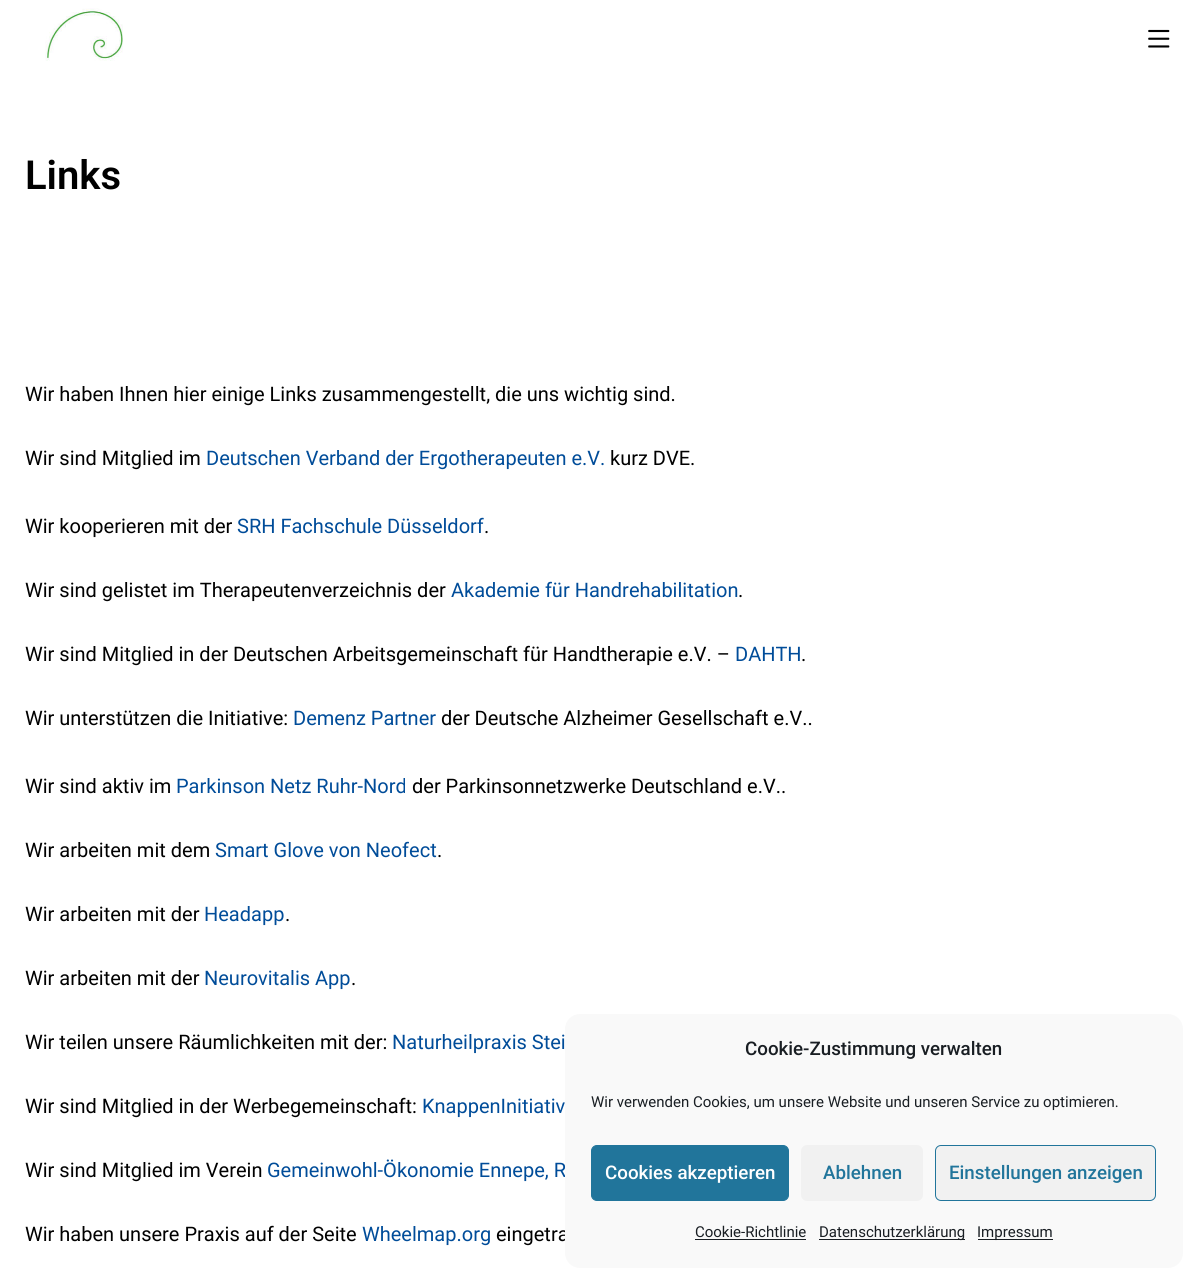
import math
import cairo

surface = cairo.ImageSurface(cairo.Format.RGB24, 1195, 1279)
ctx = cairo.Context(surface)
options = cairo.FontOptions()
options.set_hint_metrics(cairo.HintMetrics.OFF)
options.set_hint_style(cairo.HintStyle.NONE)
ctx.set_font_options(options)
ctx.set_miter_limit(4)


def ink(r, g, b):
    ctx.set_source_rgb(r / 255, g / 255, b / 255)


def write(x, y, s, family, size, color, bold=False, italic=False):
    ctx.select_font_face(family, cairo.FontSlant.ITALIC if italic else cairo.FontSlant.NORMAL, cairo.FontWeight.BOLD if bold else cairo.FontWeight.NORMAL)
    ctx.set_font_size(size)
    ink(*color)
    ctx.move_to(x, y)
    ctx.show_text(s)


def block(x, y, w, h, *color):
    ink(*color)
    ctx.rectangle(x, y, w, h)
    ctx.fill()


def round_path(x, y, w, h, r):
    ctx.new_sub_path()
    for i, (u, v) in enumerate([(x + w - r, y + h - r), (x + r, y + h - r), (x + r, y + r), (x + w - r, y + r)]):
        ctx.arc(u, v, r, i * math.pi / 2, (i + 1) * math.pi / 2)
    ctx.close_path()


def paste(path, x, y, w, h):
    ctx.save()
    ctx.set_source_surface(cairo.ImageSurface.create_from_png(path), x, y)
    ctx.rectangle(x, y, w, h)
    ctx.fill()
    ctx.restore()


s1 = dict(family="Roboto SemiBold", size=40, color=(0, 0, 0))
s2 = dict(family="Roboto", size=20, color=(0, 0, 0))
s3 = dict(family="Roboto", size=20, color=(0, 76, 153))
s4 = dict(family="Roboto Medium", size=18.75, color=(25, 30, 35))
s5 = dict(family="Roboto", size=15, color=(25, 30, 35))
s6 = dict(family="Roboto Medium", size=18.75, color=(255, 255, 255))
s7 = dict(family="Roboto Medium", size=18.75, color=(33, 117, 155))

ink(255, 255, 255)
ctx.paint()
paste("pic1.png", 45, 8, 78, 53)
paste("pic2.png", 1148, 29, 22, 19)
write(25, 189, "Links", **s1)
write(25, 401, "Wir haben Ihnen hier einige Links zusammengestellt, die uns wichtig sind.", **s2)
write(25, 465, "Wir sind Mitglied im", **s2)
write(206, 465, "Deutschen Verband der Ergotherapeuten e.V.", **s3)
write(610, 465, "kurz DVE.", **s2)
write(25, 533, "Wir kooperieren mit der", **s2)
write(237, 533, "SRH Fachschule Düsseldorf", **s3)
write(484, 533, ".", **s2)
write(25, 597, "Wir sind gelistet im Therapeutenverzeichnis der", **s2)
write(451, 597, "Akademie für Handrehabilitation", **s3)
write(738, 597, ".", **s2)
write(25, 661, "Wir sind Mitglied in der Deutschen Arbeitsgemeinschaft für Handtherapie e.V. –", **s2)
write(735, 661, "DAHTH", **s3)
write(801, 661, ".", **s2)
write(25, 725, "Wir unterstützen die Initiative:", **s2)
write(293, 725, "Demenz Partner", **s3)
write(441, 725, "der Deutsche Alzheimer Gesellschaft e.V..", **s2)
write(25, 793, "Wir sind aktiv im", **s2)
write(176, 793, "Parkinson Netz Ruhr-Nord", **s3)
write(412, 793, "der Parkinsonnetzwerke Deutschland e.V..", **s2)
write(25, 857, "Wir arbeiten mit dem", **s2)
write(215, 857, "Smart Glove von Neofect", **s3)
write(437, 857, ".", **s2)
write(25, 921, "Wir arbeiten mit der", **s2)
write(204, 921, "Headapp", **s3)
write(285, 921, ".", **s2)
write(25, 985, "Wir arbeiten mit der", **s2)
write(204, 985, "Neurovitalis App", **s3)
write(351, 985, ".", **s2)
write(25, 1049, "Wir teilen unsere Räumlichkeiten mit der:", **s2)
write(392, 1049, "Naturheilpraxis Stei", **s3)
write(25, 1113, "Wir sind Mitglied in der Werbegemeinschaft:", **s2)
write(422, 1113, "KnappenInitiativ", **s3)
write(25, 1177, "Wir sind Mitglied im Verein", **s2)
write(267, 1177, "Gemeinwohl-Ökonomie Ennepe, R", **s3)
write(25, 1241, "Wir haben unsere Praxis auf der Seite", **s2)
write(362, 1241, "Wheelmap.org", **s3)
write(496, 1241, "eingetra", **s2)
ink(249, 249, 249)
round_path(565, 1014, 618, 254, 15)
ctx.fill()
write(745, 1055, "Cookie-Zustimmung verwalten", **s4)
write(591, 1107, "Wir verwenden Cookies, um unsere Website und unseren Service zu optimieren.", **s5)
ink(33, 117, 155)
round_path(591.5, 1145.5, 197, 55, 5.5)
ctx.fill_preserve()
ctx.set_line_width(1)
ctx.stroke()
write(605, 1179, "Cookies akzeptieren", **s6)
ink(241, 241, 241)
round_path(801, 1145, 122, 56, 6)
ctx.fill()
write(823, 1179, "Ablehnen", **s7)
ink(241, 241, 241)
round_path(935.5, 1145.5, 220, 55, 5.5)
ctx.fill_preserve()
ink(33, 117, 155)
ctx.stroke()
write(949, 1179, "Einstellungen anzeigen", **s7)
write(695, 1237, "Cookie-Richtlinie", **s5)
block(695, 1239, 111, 1, 25, 30, 35)
block(819, 1239, 146, 1, 25, 30, 35)
write(819, 1237, "Datenschutzerklärung", **s5)
block(978, 1239, 75, 1, 25, 30, 35)
write(977, 1237, "Impressum", **s5)
surface.write_to_png("screenshot.png")
